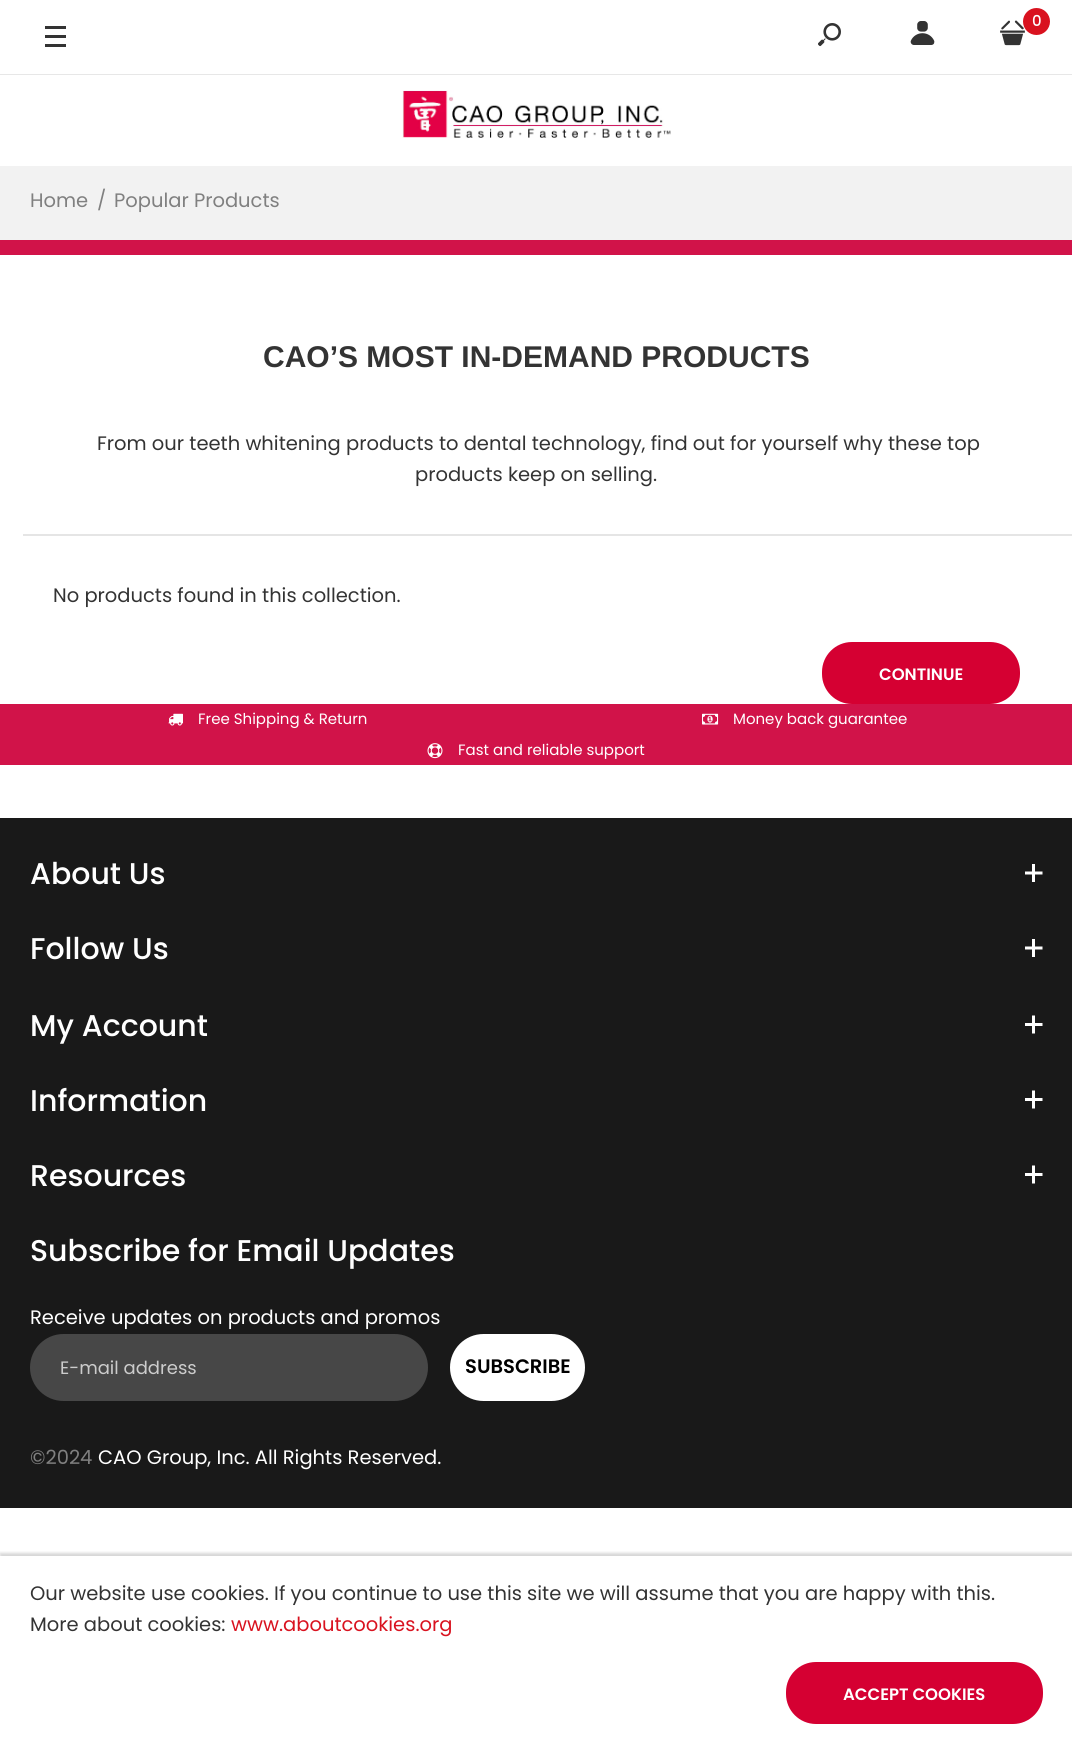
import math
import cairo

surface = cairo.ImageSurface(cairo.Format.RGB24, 1072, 1744)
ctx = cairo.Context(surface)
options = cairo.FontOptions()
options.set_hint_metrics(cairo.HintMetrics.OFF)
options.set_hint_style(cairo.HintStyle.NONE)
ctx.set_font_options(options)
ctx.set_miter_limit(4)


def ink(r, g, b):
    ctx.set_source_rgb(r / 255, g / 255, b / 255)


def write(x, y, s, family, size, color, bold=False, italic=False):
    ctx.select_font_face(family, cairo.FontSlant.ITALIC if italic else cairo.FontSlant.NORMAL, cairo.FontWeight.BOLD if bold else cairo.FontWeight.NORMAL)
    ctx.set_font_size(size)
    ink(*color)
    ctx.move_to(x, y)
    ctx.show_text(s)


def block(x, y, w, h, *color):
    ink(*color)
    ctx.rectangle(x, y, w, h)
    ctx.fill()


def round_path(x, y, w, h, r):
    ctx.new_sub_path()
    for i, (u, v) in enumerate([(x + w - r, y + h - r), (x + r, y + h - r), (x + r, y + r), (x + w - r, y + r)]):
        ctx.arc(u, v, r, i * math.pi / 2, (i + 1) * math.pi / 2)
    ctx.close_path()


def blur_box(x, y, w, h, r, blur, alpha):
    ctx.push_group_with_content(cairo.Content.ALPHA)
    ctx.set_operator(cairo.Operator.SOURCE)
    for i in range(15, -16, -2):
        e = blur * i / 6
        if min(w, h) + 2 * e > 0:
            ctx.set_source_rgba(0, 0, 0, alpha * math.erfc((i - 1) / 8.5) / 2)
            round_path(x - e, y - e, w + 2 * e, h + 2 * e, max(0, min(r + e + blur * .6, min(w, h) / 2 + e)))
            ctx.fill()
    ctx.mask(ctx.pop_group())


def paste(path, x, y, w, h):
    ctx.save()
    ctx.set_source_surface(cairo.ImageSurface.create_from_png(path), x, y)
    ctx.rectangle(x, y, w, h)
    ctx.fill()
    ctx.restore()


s1 = dict(family="Poppins Medium", size=15, color=(255, 255, 255))
s2 = dict(family="Poppins", size=19.5, color=(128, 128, 128))
s3 = dict(family="Liberation Sans", size=30, color=(51, 51, 51), bold=True)
s4 = dict(family="Poppins", size=19.5, color=(51, 51, 51))
s5 = dict(family="Poppins SemiBold", size=16.5, color=(255, 255, 255))
s6 = dict(family="Poppins", size=15, color=(255, 255, 255))
s7 = dict(family="Poppins Medium", size=30, color=(255, 255, 255))
s8 = dict(family="Poppins", size=19.5, color=(255, 255, 255))
s9 = dict(family="Poppins", size=18, color=(204, 204, 204))
s10 = dict(family="Poppins SemiBold", size=19.5, color=(0, 0, 0))
s11 = dict(family="Poppins", size=19.5, color=(217, 18, 31))

ink(255, 255, 255)
ctx.paint()
block(0, 74, 1072, 1, 231, 231, 231)
block(45, 35, 21, 3, 51, 51, 51)
block(45, 26, 21, 3, 51, 51, 51)
block(45, 44, 21, 3, 51, 51, 51)
paste("pic1.png", 818, 23, 23, 24)
paste("pic2.png", 910, 21, 25, 24)
paste("pic3.png", 1000, 20, 25, 26)
ink(217, 18, 31)
ctx.arc(1036.5, 21.5, 13.5, 0, 2 * math.pi)
ctx.fill()
write(1032, 26, "0", **s1)
paste("pic4.png", 402, 90, 269, 48)
block(0, 166, 1072, 74, 242, 242, 242)
write(30, 207, "Home", **s2)
write(97, 207, "/", **s2)
write(114, 207, "Popular Products", **s2)
block(0, 240, 1072, 15, 209, 19, 73)
write(263, 367, "CAO’S MOST IN-DEMAND PRODUCTS", **s3)
write(97, 450, "From our teeth whitening products to dental technology, find out for yourself why these top", **s4)
write(415, 481, "products keep on selling.", **s4)
block(23, 534, 1049, 2, 229, 229, 229)
write(53, 602, "No products found in this collection.", **s4)
ink(213, 0, 50)
round_path(822, 642, 198, 62, 30)
ctx.fill()
write(879, 680, "CONTINUE", **s5)
block(0, 704, 1072, 61, 209, 19, 73)
paste("pic5.png", 168, 713, 15, 13)
write(198, 724, "Free Shipping & Return", **s6)
paste("pic6.png", 702, 713, 17, 12)
write(733, 724, "Money back guarantee", **s6)
paste("pic7.png", 427, 743, 16, 16)
write(458, 755, "Fast and reliable support", **s6)
block(0, 818, 1072, 690, 25, 25, 25)
write(30, 884, "About Us", **s7)
paste("pic8.png", 1025, 864, 18, 18)
write(30, 959, "Follow Us", **s7)
paste("pic8.png", 1025, 939, 18, 18)
write(30, 1036, "My Account", **s7)
paste("pic9.png", 1025, 1015, 18, 19)
write(30, 1111, "Information", **s7)
paste("pic9.png", 1025, 1090, 18, 19)
write(30, 1186, "Resources", **s7)
paste("pic9.png", 1025, 1165, 18, 19)
write(30, 1261, "Subscribe for Email Updates", **s7)
write(30, 1324, "Receive updates on products and promos", **s8)
ink(71, 71, 71)
round_path(30, 1334, 398, 67, 33.5)
ctx.fill()
write(60, 1374, "E-mail address", **s9)
ink(255, 255, 255)
round_path(450, 1334, 135, 67, 33.5)
ctx.fill()
write(465, 1373, "SUBSCRIBE", **s10)
write(30, 1464, "©2024", **s2)
write(98, 1464, "CAO Group, Inc. All Rights Reserved.", **s8)
ctx.save()
ctx.rectangle(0, 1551, 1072, 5)
ctx.clip()
ink(50, 50, 50)
blur_box(0, 1553, 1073, 189, 0, 1.5, 0.2)
ctx.restore()
write(30, 1600, "Our website use cookies. If you continue to use this site we will assume that you are happy with this.", **s4)
write(30, 1631, "More about cookies:", **s4)
write(231, 1631, "www.aboutcookies.org", **s11)
ink(213, 0, 50)
round_path(786, 1662, 257, 62, 30)
ctx.fill()
write(843, 1700, "ACCEPT COOKIES", **s5)
surface.write_to_png("screenshot.png")
